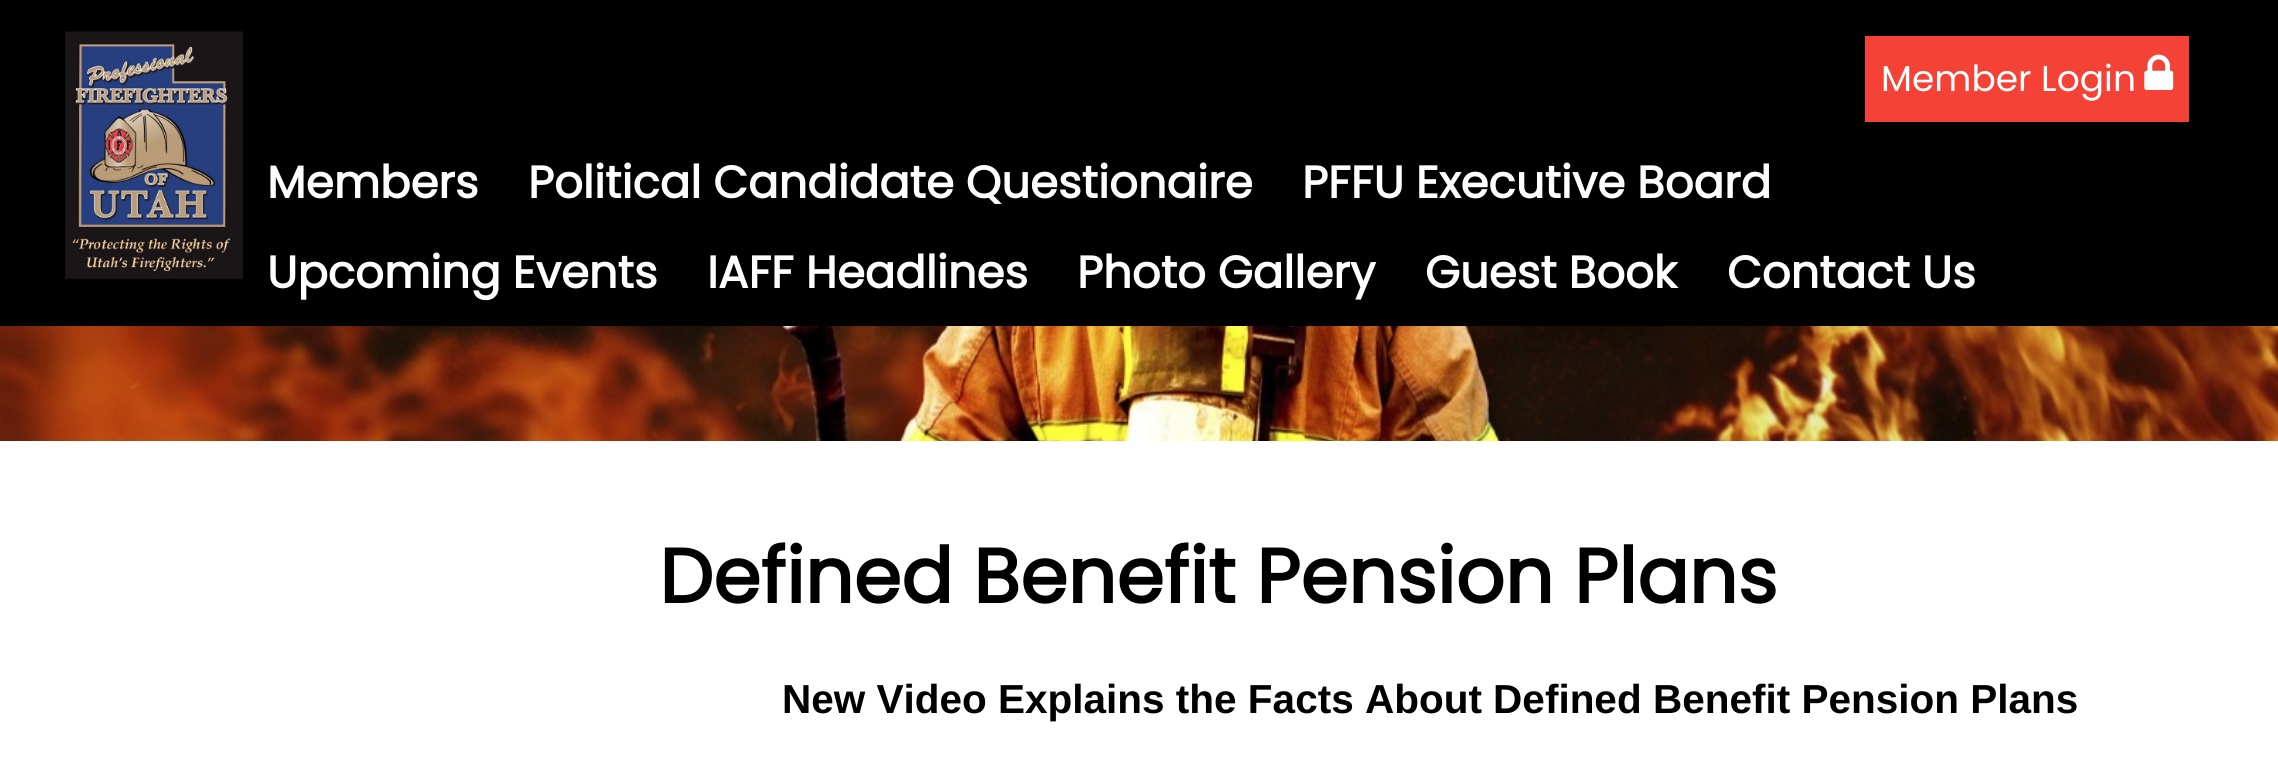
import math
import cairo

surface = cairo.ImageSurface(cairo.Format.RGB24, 2278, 772)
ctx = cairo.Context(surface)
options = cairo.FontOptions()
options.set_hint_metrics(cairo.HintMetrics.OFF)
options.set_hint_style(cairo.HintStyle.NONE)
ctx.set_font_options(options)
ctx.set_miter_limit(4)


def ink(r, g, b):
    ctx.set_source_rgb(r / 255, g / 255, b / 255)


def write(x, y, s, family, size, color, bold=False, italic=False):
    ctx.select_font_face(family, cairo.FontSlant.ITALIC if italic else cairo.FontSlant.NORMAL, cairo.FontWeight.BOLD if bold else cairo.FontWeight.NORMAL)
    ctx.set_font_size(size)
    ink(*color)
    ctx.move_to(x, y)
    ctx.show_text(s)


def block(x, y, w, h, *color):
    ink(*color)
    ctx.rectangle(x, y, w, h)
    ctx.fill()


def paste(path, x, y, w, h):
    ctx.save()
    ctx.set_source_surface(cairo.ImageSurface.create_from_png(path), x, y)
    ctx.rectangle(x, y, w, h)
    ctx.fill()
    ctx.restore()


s1 = dict(family="Poppins", size=36, color=(255, 255, 255))
s2 = dict(family="Poppins", size=45, color=(255, 255, 255), bold=True)
s3 = dict(family="Poppins", size=76.5, color=(0, 0, 0), bold=True)
s4 = dict(family="Liberation Sans", size=40.5, color=(0, 0, 0), bold=True)

ink(255, 255, 255)
ctx.paint()
block(0, 0, 2278, 326, 0, 0, 0)
paste("pic1.png", 65, 31, 178, 248)
block(1865, 36, 324, 86, 244, 67, 54)
write(1881, 91, "Member Login", **s1)
paste("pic2.png", 2144, 54, 30, 36)
write(267, 198, "Members", **s2)
write(528, 198, "Political Candidate Questionaire", **s2)
write(1302, 198, "PFFU Executive Board", **s2)
write(267, 288, "Upcoming Events", **s2)
write(707, 288, "IAFF Headlines", **s2)
write(1077, 288, "Photo Gallery", **s2)
write(1425, 288, "Guest Book", **s2)
write(1727, 288, "Contact Us", **s2)
paste("pic3.png", 0, 326, 2278, 115)
write(659, 603, "Defined Benefit Pension Plans", **s3)
write(782, 713, "New Video Explains the Facts About Defined Benefit Pension Plans", **s4)
surface.write_to_png("screenshot.png")
